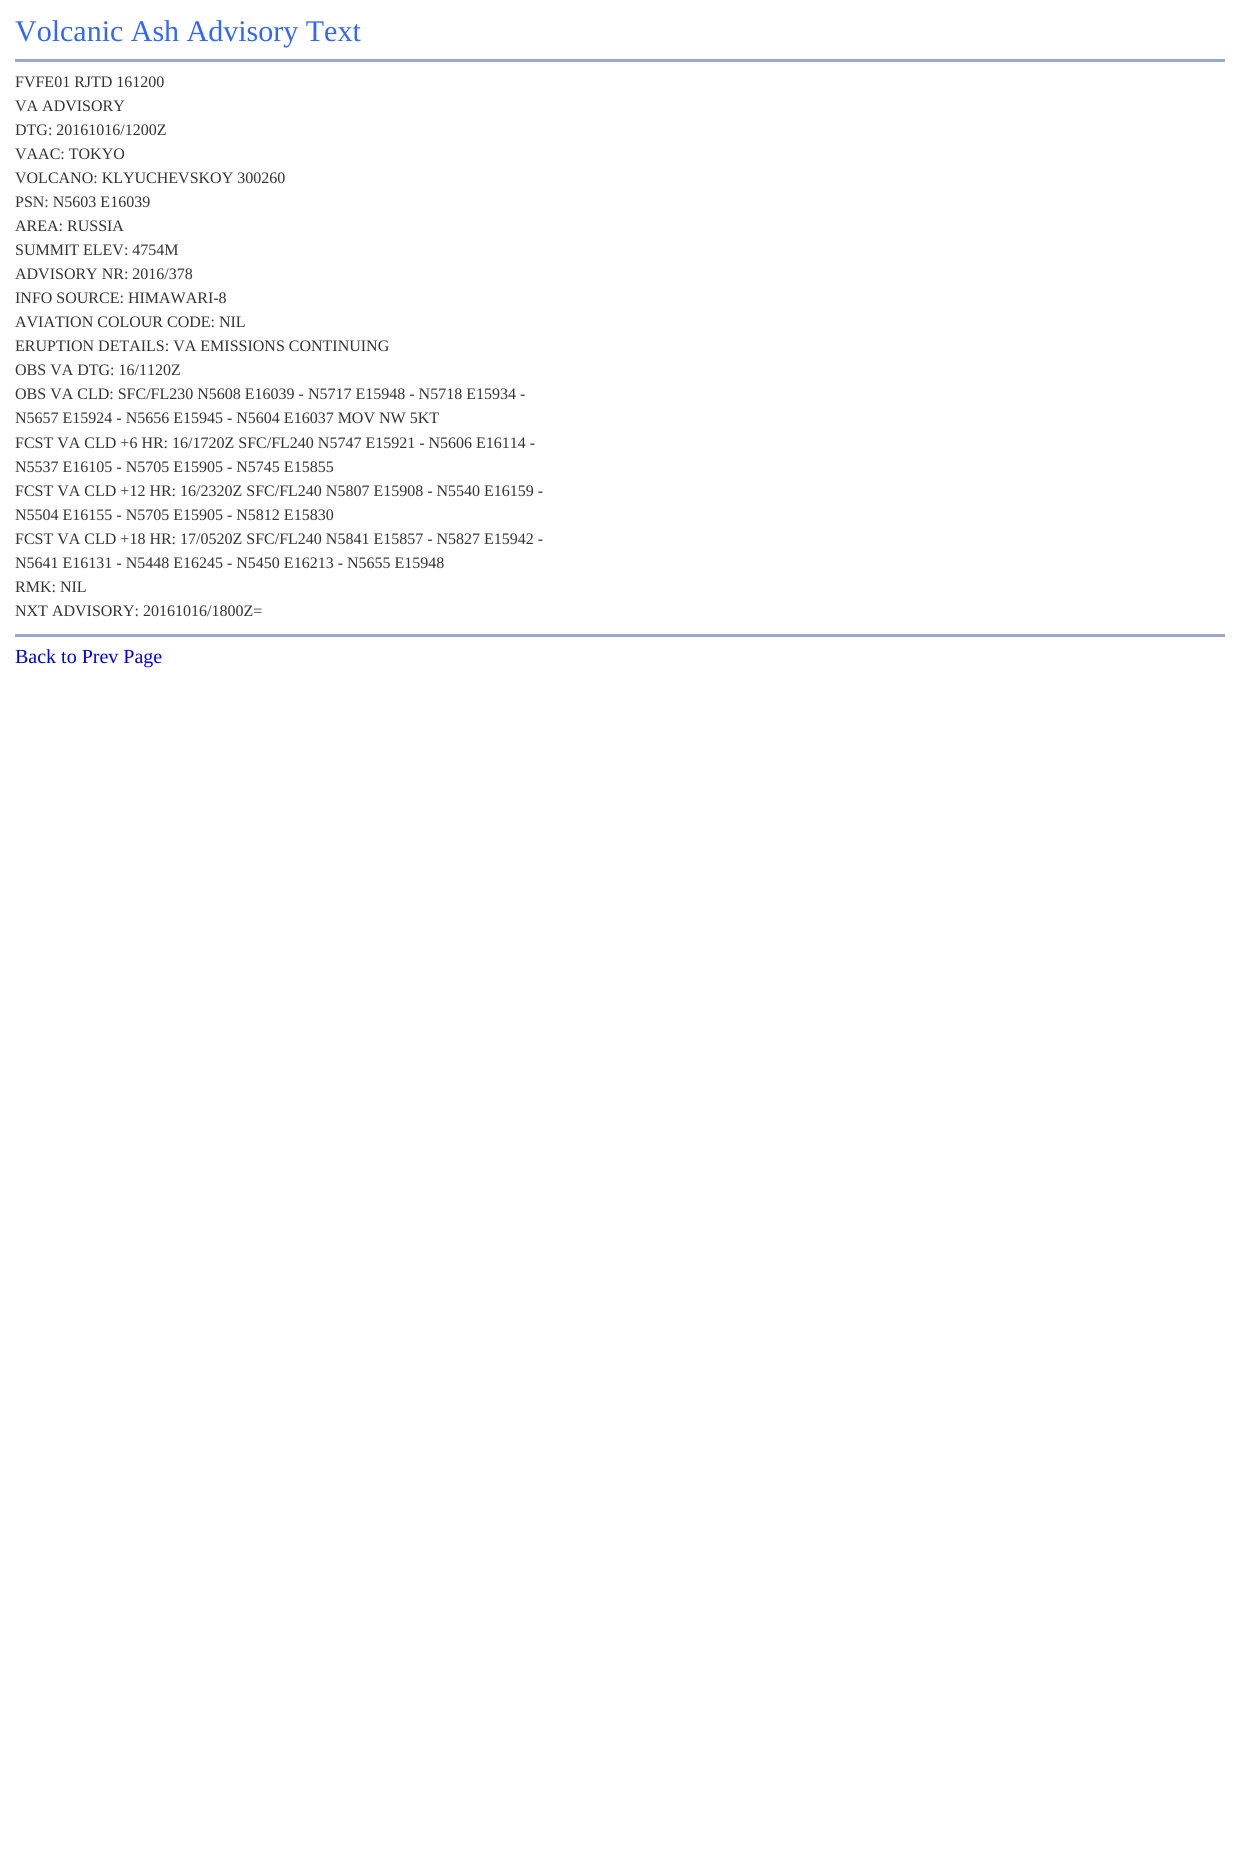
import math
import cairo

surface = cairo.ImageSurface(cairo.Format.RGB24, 1239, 1858)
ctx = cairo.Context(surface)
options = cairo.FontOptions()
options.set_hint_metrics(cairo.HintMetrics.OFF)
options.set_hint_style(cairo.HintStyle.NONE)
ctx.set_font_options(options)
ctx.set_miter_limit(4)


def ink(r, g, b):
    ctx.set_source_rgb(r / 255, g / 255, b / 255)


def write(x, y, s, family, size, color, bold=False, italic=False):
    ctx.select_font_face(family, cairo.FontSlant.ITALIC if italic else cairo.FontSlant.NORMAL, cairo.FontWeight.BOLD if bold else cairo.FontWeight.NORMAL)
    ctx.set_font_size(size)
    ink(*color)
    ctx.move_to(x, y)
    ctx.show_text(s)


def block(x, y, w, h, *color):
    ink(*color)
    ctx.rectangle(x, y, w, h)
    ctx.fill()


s1 = dict(family="Liberation Serif", size=30, color=(51, 102, 255))
s2 = dict(family="Liberation Serif", size=16, color=(51, 51, 51))
s3 = dict(family="Liberation Serif", size=20, color=(0, 0, 238))

ink(255, 255, 255)
ctx.paint()
write(15, 41, "Volcanic Ash Advisory Text", **s1)
block(15, 59, 1210, 3, 155, 168, 202)
write(15, 87, "FVFE01 RJTD 161200", **s2)
write(15, 111, "VA ADVISORY", **s2)
write(15, 135, "DTG: 20161016/1200Z", **s2)
write(15, 159, "VAAC: TOKYO", **s2)
write(15, 183, "VOLCANO: KLYUCHEVSKOY 300260", **s2)
write(15, 207, "PSN: N5603 E16039", **s2)
write(15, 231, "AREA: RUSSIA", **s2)
write(15, 255, "SUMMIT ELEV: 4754M", **s2)
write(15, 279, "ADVISORY NR: 2016/378", **s2)
write(15, 303, "INFO SOURCE: HIMAWARI-8", **s2)
write(15, 327, "AVIATION COLOUR CODE: NIL", **s2)
write(15, 351, "ERUPTION DETAILS: VA EMISSIONS CONTINUING", **s2)
write(15, 375, "OBS VA DTG: 16/1120Z", **s2)
write(15, 399, "OBS VA CLD: SFC/FL230 N5608 E16039 - N5717 E15948 - N5718 E15934 -", **s2)
write(15, 423, "N5657 E15924 - N5656 E15945 - N5604 E16037 MOV NW 5KT", **s2)
write(15, 448, "FCST VA CLD +6 HR: 16/1720Z SFC/FL240 N5747 E15921 - N5606 E16114 -", **s2)
write(15, 472, "N5537 E16105 - N5705 E15905 - N5745 E15855", **s2)
write(15, 496, "FCST VA CLD +12 HR: 16/2320Z SFC/FL240 N5807 E15908 - N5540 E16159 -", **s2)
write(15, 520, "N5504 E16155 - N5705 E15905 - N5812 E15830", **s2)
write(15, 544, "FCST VA CLD +18 HR: 17/0520Z SFC/FL240 N5841 E15857 - N5827 E15942 -", **s2)
write(15, 568, "N5641 E16131 - N5448 E16245 - N5450 E16213 - N5655 E15948", **s2)
write(15, 592, "RMK: NIL", **s2)
write(15, 616, "NXT ADVISORY: 20161016/1800Z=", **s2)
block(15, 634, 1210, 3, 155, 168, 202)
write(15, 663, "Back to Prev Page", **s3)
surface.write_to_png("screenshot.png")
